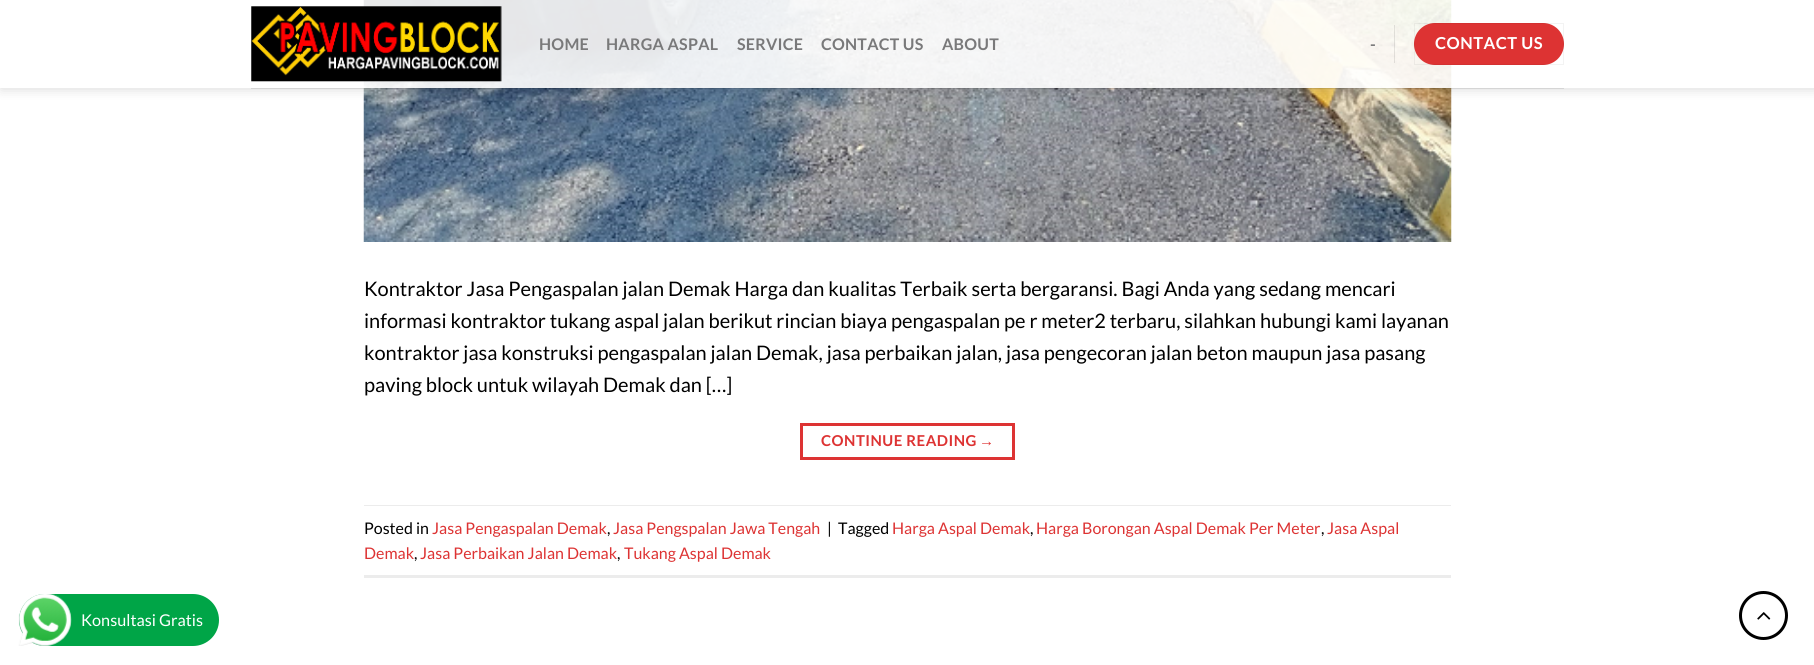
import math
import cairo

surface = cairo.ImageSurface(cairo.Format.RGB24, 1814, 665)
ctx = cairo.Context(surface)
options = cairo.FontOptions()
options.set_hint_metrics(cairo.HintMetrics.OFF)
options.set_hint_style(cairo.HintStyle.NONE)
ctx.set_font_options(options)
ctx.set_miter_limit(4)


def ink(r, g, b):
    ctx.set_source_rgb(r / 255, g / 255, b / 255)


def write(x, y, s, family, size, color, bold=False, italic=False):
    ctx.select_font_face(family, cairo.FontSlant.ITALIC if italic else cairo.FontSlant.NORMAL, cairo.FontWeight.BOLD if bold else cairo.FontWeight.NORMAL)
    ctx.set_font_size(size)
    ink(*color)
    ctx.move_to(x, y)
    ctx.show_text(s)


def write_spaced(x, y, s, letter, word):
    ctx.move_to(x, y)
    for ch in s:
        ctx.show_text(ch)
        ctx.rel_move_to(letter + word * (ch == ' '), 0)


def block(x, y, w, h, *color):
    ink(*color)
    ctx.rectangle(x, y, w, h)
    ctx.fill()


def round_path(x, y, w, h, r):
    ctx.new_sub_path()
    for i, (u, v) in enumerate([(x + w - r, y + h - r), (x + r, y + h - r), (x + r, y + r), (x + w - r, y + r)]):
        ctx.arc(u, v, r, i * math.pi / 2, (i + 1) * math.pi / 2)
    ctx.close_path()


def blur_box(x, y, w, h, r, blur, alpha):
    ctx.push_group_with_content(cairo.Content.ALPHA)
    ctx.set_operator(cairo.Operator.SOURCE)
    for i in range(15, -16, -2):
        e = blur * i / 6
        if min(w, h) + 2 * e > 0:
            ctx.set_source_rgba(0, 0, 0, alpha * math.erfc((i - 1) / 8.5) / 2)
            round_path(x - e, y - e, w + 2 * e, h + 2 * e, max(0, min(r + e + blur * .6, min(w, h) / 2 + e)))
            ctx.fill()
    ctx.mask(ctx.pop_group())


def paste(path, x, y, w, h):
    ctx.save()
    ctx.set_source_surface(cairo.ImageSurface.create_from_png(path), x, y)
    ctx.rectangle(x, y, w, h)
    ctx.fill()
    ctx.restore()


s1 = dict(family="Lato", size=20, color=(0, 0, 0))
s2 = dict(family="Lato", size=16, color=(0, 0, 0))
s3 = dict(family="Lato", size=16, color=(221, 51, 51))
s4 = dict(family="Lato", size=16.25, color=(255, 255, 255))

ink(255, 255, 255)
ctx.paint()
paste("pic2.png", 363, 0, 1089, 242)
ctx.save()
ctx.set_fill_rule(cairo.FillRule.EVEN_ODD)
ctx.new_path()
ctx.move_to(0, 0)
ctx.line_to(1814, 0)
ctx.line_to(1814, 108)
ctx.line_to(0, 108)
ctx.close_path()
ctx.move_to(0, 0)
ctx.line_to(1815, 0)
ctx.line_to(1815, 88)
ctx.line_to(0, 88)
ctx.close_path()
ctx.clip()
ink(0, 0, 0)
blur_box(1, 1, 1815, 88, 0, 6, 0.15)
ctx.restore()
ctx.set_source_rgba(1, 1, 1, 0.9)
ctx.rectangle(0, 0, 1814, 88)
ctx.fill()
paste("pic1.png", 251, 6, 251, 76)
ctx.select_font_face("Lato", cairo.FontSlant.NORMAL, cairo.FontWeight.BOLD)
ctx.set_font_size(16)
ink(121, 121, 122)
write_spaced(539, 50, "HOME", 0.25, 0)
write_spaced(606, 50, "HARGA ASPAL", 0.25, 0)
write_spaced(737, 50, "SERVICE", 0.25, 0)
write_spaced(821, 50, "CONTACT US", 0.25, 0)
write_spaced(942, 50, "ABOUT", 0.25, 0)
write_spaced(1370, 50, "-", 0.25, 0)
ctx.set_source_rgba(0, 0, 0, 0.1)
ctx.rectangle(1394, 25, 1, 38)
ctx.fill()
ink(221, 51, 51)
round_path(1414, 23, 150, 42, 21)
ctx.fill()
ctx.rectangle(1414.5, 23.5, 149, 41)
ctx.set_source_rgba(0, 0, 0, 0.05)
ctx.set_line_width(1)
ctx.stroke()
ctx.set_font_size(16.5)
ink(255, 255, 255)
write_spaced(1435, 49, "CONTACT US", 0.5, 0)
ctx.set_source_rgba(0, 0, 0, 0.1)
ctx.rectangle(251, 88, 1313, 1)
ctx.fill()
write(364, 296, "Kontraktor Jasa Pengaspalan jalan Demak Harga dan kualitas Terbaik serta bergaransi. Bagi Anda yang sedang mencari", **s1)
write(364, 328, "informasi kontraktor tukang aspal jalan berikut rincian biaya pengaspalan pe r meter2 terbaru, silahkan hubungi kami layanan", **s1)
write(364, 360, "kontraktor jasa konstruksi pengaspalan jalan Demak, jasa perbaikan jalan, jasa pengecoran jalan beton maupun jasa pasang", **s1)
write(364, 392, "paving block untuk wilayah Demak dan […]", **s1)
ctx.rectangle(801.5, 424.5, 212, 34)
ink(221, 51, 51)
ctx.set_line_width(3)
ctx.stroke()
ctx.select_font_face("Lato", cairo.FontSlant.NORMAL, cairo.FontWeight.BOLD)
ctx.set_font_size(15)
write_spaced(821, 446, "CONTINUE READING", 0.5, 0)
ctx.select_font_face("Liberation Sans", cairo.FontSlant.NORMAL, cairo.FontWeight.BOLD)
write_spaced(979, 446, "→", 0.5, 0)
block(364, 505, 1087, 1, 236, 236, 236)
block(364, 575, 1087, 3, 236, 236, 236)
write(364, 534, "Posted in", **s2)
write(432, 534, "Jasa Pengaspalan Demak", **s3)
write(607, 534, ",", **s2)
write(613, 534, "Jasa Pengspalan Jawa Tengah", **s3)
write(827, 534, "|", **s2)
write(838, 534, "Tagged", **s2)
write(892, 534, "Harga Aspal Demak", **s3)
write(1030, 534, ",", **s2)
write(1036, 534, "Harga Borongan Aspal Demak Per Meter", **s3)
write(1321, 534, ",", **s2)
write(1327, 534, "Jasa Aspal", **s3)
write(364, 559, "Demak", **s3)
write(414, 559, ",", **s2)
write(420, 559, "Jasa Perbaikan Jalan Demak", **s3)
write(617, 559, ",", **s2)
write(624, 559, "Tukang Aspal Demak", **s3)
ctx.new_path()
ctx.arc(1763.5, 615.5, 23, 0, 2 * math.pi)
ink(0, 0, 0)
ctx.stroke()
paste("pic3.png", 1757, 612, 14, 8)
ink(0, 165, 71)
round_path(19, 594, 200, 52, 26)
ctx.fill()
paste("pic4.png", 18, 594, 54, 52)
write(81, 626, "Konsultasi Gratis", **s4)
surface.write_to_png("screenshot.png")
